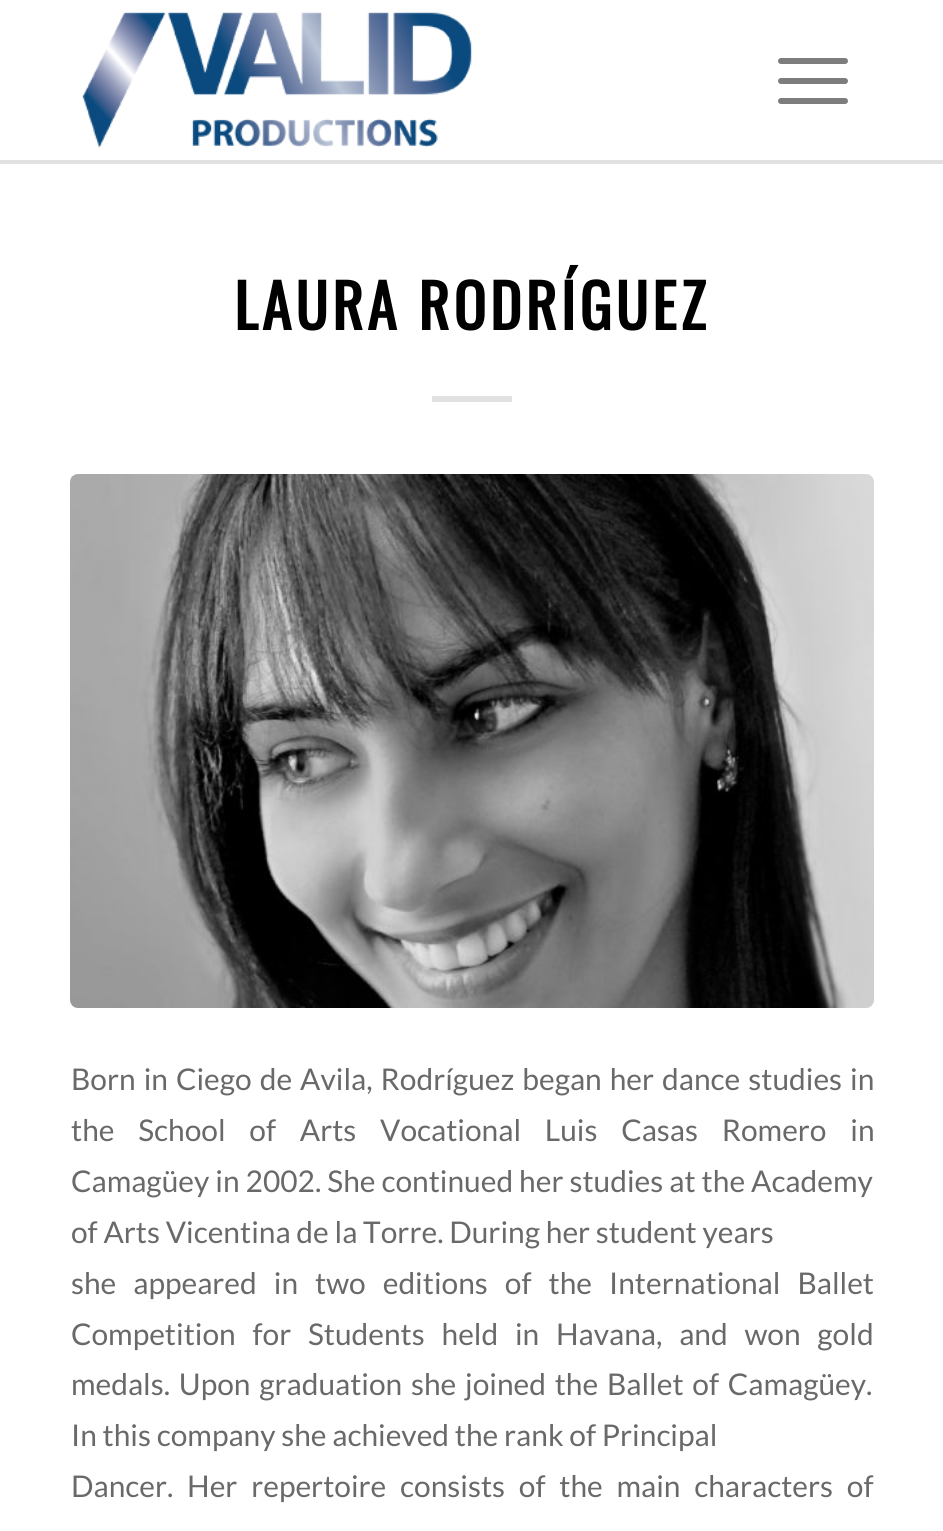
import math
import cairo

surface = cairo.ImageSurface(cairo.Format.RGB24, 943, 1531)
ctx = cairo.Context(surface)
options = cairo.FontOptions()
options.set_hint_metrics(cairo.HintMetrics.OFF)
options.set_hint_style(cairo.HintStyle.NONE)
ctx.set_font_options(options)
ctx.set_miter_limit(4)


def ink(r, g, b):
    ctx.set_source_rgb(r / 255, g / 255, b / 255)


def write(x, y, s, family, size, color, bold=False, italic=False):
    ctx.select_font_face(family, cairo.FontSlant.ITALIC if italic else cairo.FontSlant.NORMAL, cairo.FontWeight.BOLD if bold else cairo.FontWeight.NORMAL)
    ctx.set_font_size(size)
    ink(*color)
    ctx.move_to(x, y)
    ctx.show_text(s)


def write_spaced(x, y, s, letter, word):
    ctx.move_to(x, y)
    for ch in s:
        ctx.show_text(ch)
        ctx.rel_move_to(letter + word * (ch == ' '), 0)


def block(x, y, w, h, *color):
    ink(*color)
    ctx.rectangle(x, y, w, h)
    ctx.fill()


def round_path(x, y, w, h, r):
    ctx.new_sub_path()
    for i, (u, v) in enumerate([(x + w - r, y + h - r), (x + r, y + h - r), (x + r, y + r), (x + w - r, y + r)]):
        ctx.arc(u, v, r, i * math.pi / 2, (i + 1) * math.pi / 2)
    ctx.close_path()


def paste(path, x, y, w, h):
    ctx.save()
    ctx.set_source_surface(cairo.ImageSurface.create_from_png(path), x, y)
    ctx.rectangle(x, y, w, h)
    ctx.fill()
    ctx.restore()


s1 = dict(family="Lato", size=29.9, color=(105, 105, 105))

ink(255, 255, 255)
ctx.paint()
block(0, 160, 943, 4, 225, 225, 225)
paste("pic1.png", 82, 12, 390, 136)
ink(125, 125, 125)
round_path(778, 78, 70, 6, 3)
ctx.fill()
round_path(778, 58, 70, 6, 3)
ctx.fill()
round_path(778, 98, 70, 6, 3)
ctx.fill()
ctx.select_font_face("Oswald", cairo.FontSlant.NORMAL, cairo.FontWeight.BOLD)
ctx.set_font_size(60)
ink(0, 0, 0)
write_spaced(234, 330, "LAURA RODRÍGUEZ", 4, 0)
block(432, 396, 80, 6, 225, 225, 225)
paste("pic2.png", 70, 474, 804, 534)
ctx.select_font_face("Lato")
ctx.set_font_size(29.9)
ink(105, 105, 105)
write_spaced(71, 1090, "Born in Ciego de Avila, Rodríguez began her dance studies in", 0, 2.25)
write_spaced(71, 1141, "the School of Arts Vocational Luis Casas Romero in", 0, 18)
write_spaced(71, 1192, "Camagüey in 2002. She continued her studies at the Academy", 0, 0.25)
write(71, 1243, "of Arts Vicentina de la Torre. During her student years", **s1)
write_spaced(71, 1294, "she appeared in two editions of the International Ballet", 0, 11.25)
write_spaced(71, 1345, "Competition for Students held in Havana, and won gold", 0, 11)
write_spaced(71, 1395, "medals. Upon graduation she joined the Ballet of Camagüey.", 0, 3)
write(71, 1446, "In this company she achieved the rank of Principal", **s1)
write_spaced(71, 1497, "Dancer. Her repertoire consists of the main characters of", 0, 8)
surface.write_to_png("screenshot.png")
